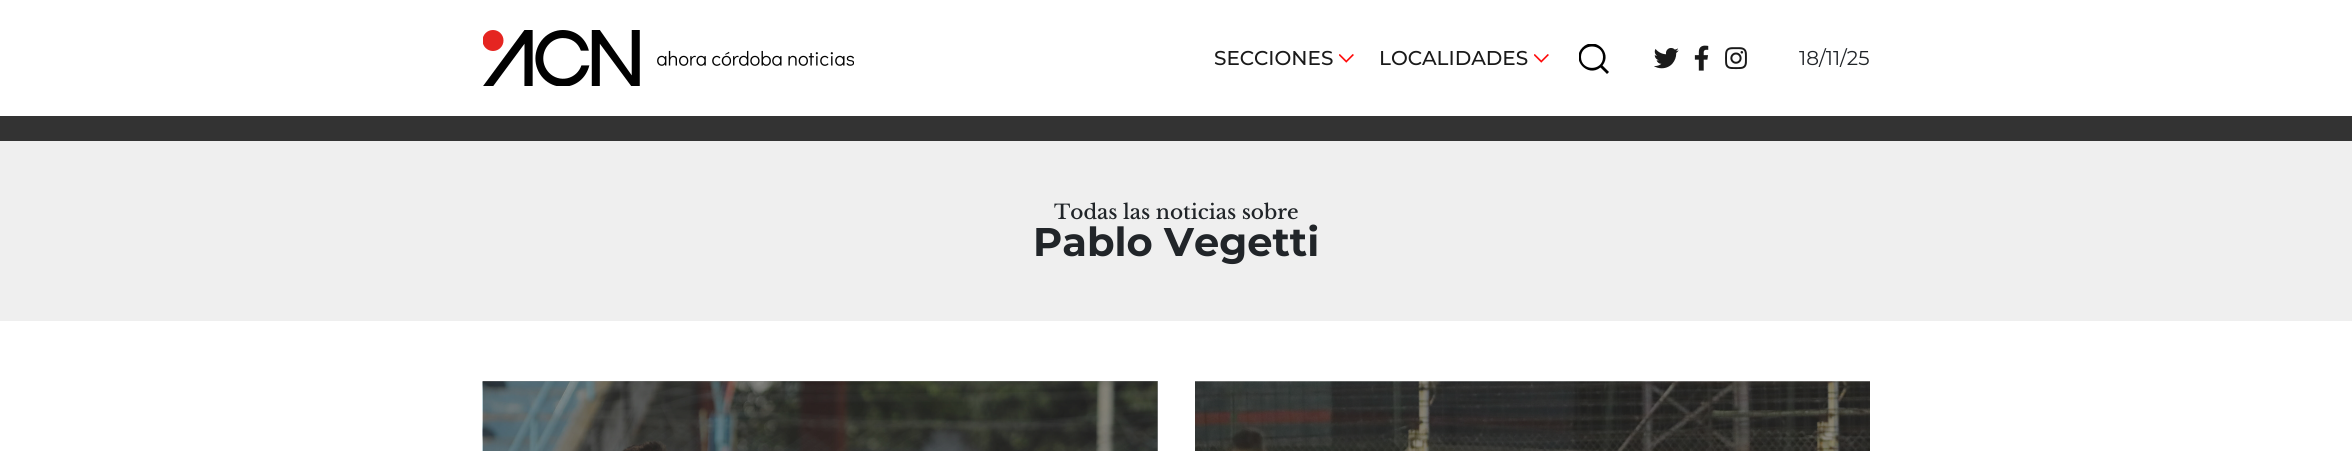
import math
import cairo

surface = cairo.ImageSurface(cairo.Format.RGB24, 2352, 451)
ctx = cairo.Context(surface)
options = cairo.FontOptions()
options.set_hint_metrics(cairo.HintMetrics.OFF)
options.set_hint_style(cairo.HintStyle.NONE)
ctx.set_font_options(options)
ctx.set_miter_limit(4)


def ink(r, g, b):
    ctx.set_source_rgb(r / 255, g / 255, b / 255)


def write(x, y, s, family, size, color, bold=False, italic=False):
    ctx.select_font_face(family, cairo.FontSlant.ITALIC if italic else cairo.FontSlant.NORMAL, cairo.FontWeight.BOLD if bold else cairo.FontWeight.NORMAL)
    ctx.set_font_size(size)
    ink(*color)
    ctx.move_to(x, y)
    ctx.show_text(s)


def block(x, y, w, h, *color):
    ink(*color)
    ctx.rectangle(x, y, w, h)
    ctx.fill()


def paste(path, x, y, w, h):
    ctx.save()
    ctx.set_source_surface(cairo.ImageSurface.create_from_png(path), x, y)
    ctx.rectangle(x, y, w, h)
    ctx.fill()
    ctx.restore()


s1 = dict(family="Montserrat Medium", size=20, color=(26, 26, 26))
s2 = dict(family="Montserrat", size=20, color=(33, 37, 41))
s3 = dict(family="Libre Baskerville Medium", size=20, color=(33, 37, 41))
s4 = dict(family="Montserrat", size=40, color=(33, 37, 41), bold=True)

ink(255, 255, 255)
ctx.paint()
block(483, 381, 675, 70, 153, 153, 153)
paste("pic1.png", 483, 30, 371, 56)
write(1214, 65, "SECCIONES", **s1)
paste("pic2.png", 1339, 54, 15, 9)
write(1379, 65, "LOCALIDADES", **s1)
paste("pic2.png", 1534, 54, 15, 9)
ctx.save()
ctx.rectangle(1579, 44, 30, 30)
ctx.clip()
ink(0, 0, 0)
ctx.new_path()
ctx.move_to(1609, 72)
ctx.line_to(1602.5, 65.5)
ctx.curve_to(1613, 52.5, 1594.5, 35.5, 1582.5, 47.5)
ctx.curve_to(1570.5, 59.5, 1587.5, 78, 1600.5, 67.5)
ctx.line_to(1607, 74)
ctx.close_path()
ctx.move_to(1581, 57)
ctx.curve_to(1581, 43, 1603, 43, 1603, 57)
ctx.curve_to(1603, 71.5, 1581, 71.5, 1581, 57)
ctx.close_path()
ctx.fill()
ctx.restore()
paste("pic3.png", 1654, 48, 25, 21)
paste("pic4.png", 1694, 45, 15, 26)
paste("pic5.png", 1725, 47, 22, 23)
write(1799, 65, "18/11/25", **s2)
block(0, 116, 2352, 25, 51, 51, 51)
block(0, 141, 2352, 180, 239, 239, 239)
write(1054, 219, "Todas las noticias sobre", **s3)
write(1033, 256, "Pablo Vegetti", **s4)
paste("pic6.png", 482, 381, 676, 70)
paste("pic7.png", 1195, 381, 675, 70)
surface.write_to_png("screenshot.png")
